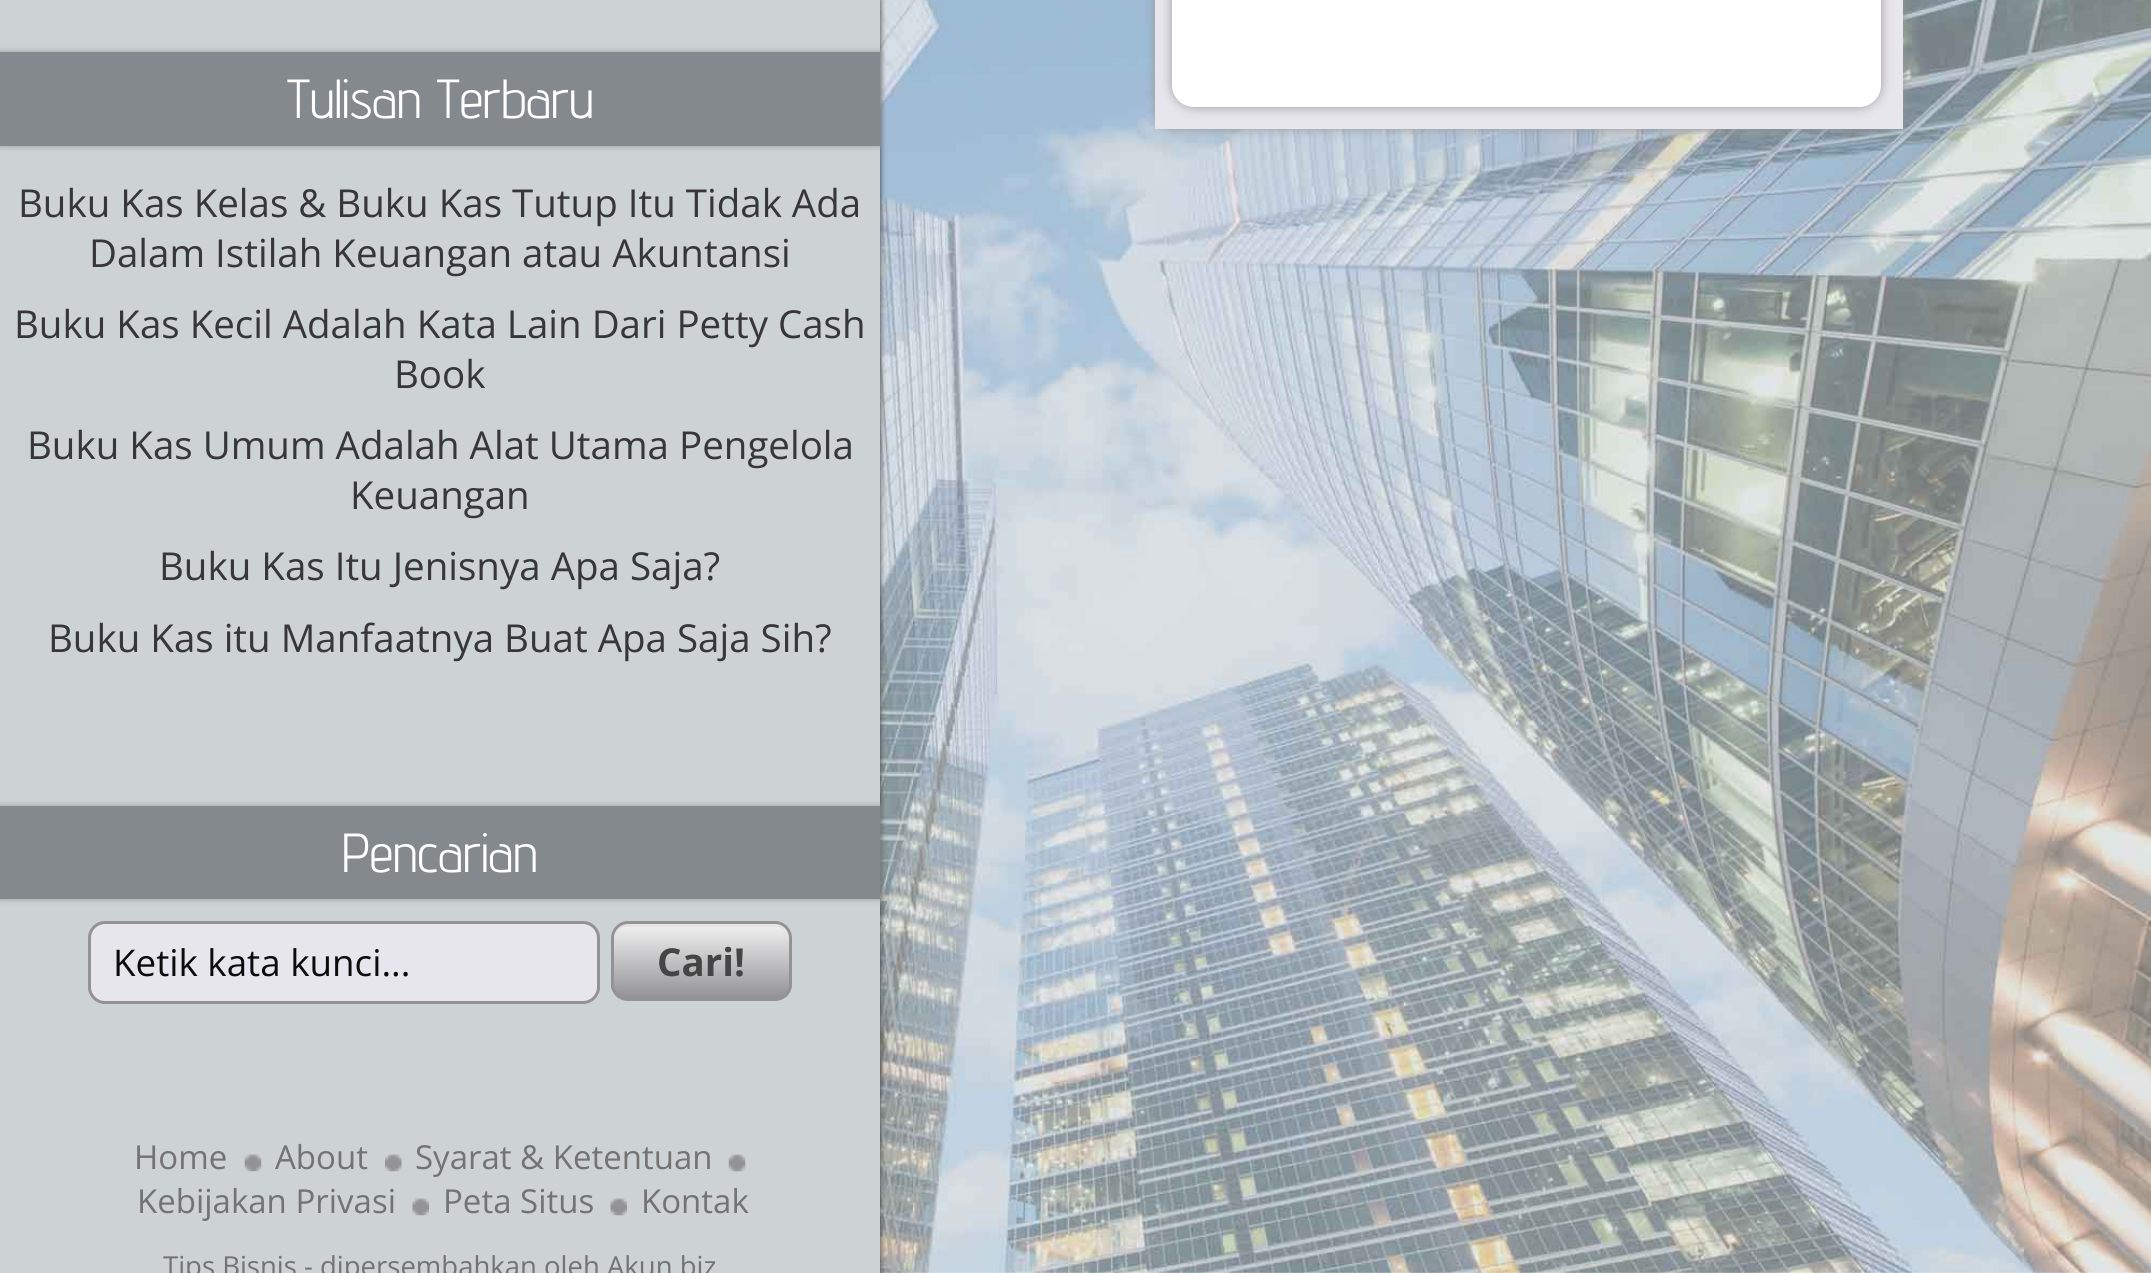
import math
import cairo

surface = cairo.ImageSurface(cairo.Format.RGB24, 2151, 1273)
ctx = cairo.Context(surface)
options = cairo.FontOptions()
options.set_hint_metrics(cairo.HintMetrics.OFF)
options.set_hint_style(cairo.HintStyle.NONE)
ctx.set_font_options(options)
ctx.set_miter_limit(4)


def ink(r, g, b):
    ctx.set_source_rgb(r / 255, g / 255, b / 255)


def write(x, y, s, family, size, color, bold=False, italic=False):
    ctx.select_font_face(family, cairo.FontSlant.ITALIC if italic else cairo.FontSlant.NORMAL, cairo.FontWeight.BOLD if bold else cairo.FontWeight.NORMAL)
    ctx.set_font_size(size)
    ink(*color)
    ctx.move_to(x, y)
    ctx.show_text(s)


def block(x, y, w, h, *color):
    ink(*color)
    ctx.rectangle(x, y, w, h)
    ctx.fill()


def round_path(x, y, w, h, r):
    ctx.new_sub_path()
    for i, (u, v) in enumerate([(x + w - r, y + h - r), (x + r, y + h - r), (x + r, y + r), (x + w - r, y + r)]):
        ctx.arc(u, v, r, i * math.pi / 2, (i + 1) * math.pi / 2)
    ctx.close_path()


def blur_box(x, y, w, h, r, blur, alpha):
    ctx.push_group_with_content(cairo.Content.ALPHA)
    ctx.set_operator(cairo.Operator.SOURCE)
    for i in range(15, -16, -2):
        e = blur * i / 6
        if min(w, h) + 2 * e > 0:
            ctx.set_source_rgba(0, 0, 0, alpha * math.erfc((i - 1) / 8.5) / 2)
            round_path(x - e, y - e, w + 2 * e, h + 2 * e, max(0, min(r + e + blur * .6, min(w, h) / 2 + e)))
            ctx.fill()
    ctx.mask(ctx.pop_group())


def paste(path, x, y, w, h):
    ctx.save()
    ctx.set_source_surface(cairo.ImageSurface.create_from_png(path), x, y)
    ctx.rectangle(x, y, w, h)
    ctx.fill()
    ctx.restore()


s1 = dict(family="Advent Pro", size=55, color=(255, 255, 255))
s2 = dict(family="Open Sans", size=38.5, color=(55, 54, 56))
s3 = dict(family="Open Sans", size=36.75, color=(12, 12, 13))
s4 = dict(family="Open Sans", size=38.5, color=(69, 69, 69), bold=True)
s5 = dict(family="Open Sans", size=33, color=(115, 115, 115))
s6 = dict(family="Open Sans", size=27.5, color=(115, 115, 115))

ink(255, 255, 255)
ctx.paint()
paste("pic1.png", 880, 0, 1271, 1273)
ink(51, 51, 51)
blur_box(0, 0, 880, 1273, 0, 3, 1)
block(0, 0, 880, 1273, 205, 210, 212)
ink(153, 153, 153)
blur_box(1155, -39, 748, 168, 22, 5.5, 1)
block(1155, 0, 748, 129, 232, 230, 237)
ink(153, 153, 153)
blur_box(1172, -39, 709, 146, 22, 5.5, 1)
ink(255, 255, 255)
round_path(1173.5, -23.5, 706, 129, 20.5)
ctx.fill_preserve()
ctx.set_line_width(3)
ctx.stroke()
ink(153, 153, 153)
blur_box(0, 52, 880, 94, 0, 3, 1)
block(0, 52, 880, 94, 131, 137, 141)
write(287, 118, "Tulisan Terbaru", **s1)
write(18, 217, "Buku Kas Kelas & Buku Kas Tutup Itu Tidak Ada", **s2)
write(89, 267, "Dalam Istilah Keuangan atau Akuntansi", **s2)
write(14, 338, "Buku Kas Kecil Adalah Kata Lain Dari Petty Cash", **s2)
write(394, 388, "Book", **s2)
write(27, 459, "Buku Kas Umum Adalah Alat Utama Pengelola", **s2)
write(350, 509, "Keuangan", **s2)
write(159, 580, "Buku Kas Itu Jenisnya Apa Saja?", **s2)
write(48, 652, "Buku Kas itu Manfaatnya Buat Apa Saja Sih?", **s2)
ink(153, 153, 153)
blur_box(0, 806, 880, 93, 0, 3, 1)
block(0, 806, 880, 93, 131, 137, 141)
write(342, 872, "Pencarian", **s1)
ink(232, 230, 237)
round_path(89.5, 922.5, 509, 80, 15.5)
ctx.fill_preserve()
ink(147, 146, 150)
ctx.stroke()
write(113, 976, "Ketik kata kunci...", **s3)
ctx.save()
round_path(611, 921, 181, 80, 17)
ctx.clip()
gradient = cairo.LinearGradient(613, 924, 613, 998)
gradient.add_color_stop_rgba(0.05, 0.929, 0.929, 0.929, 1)
gradient.add_color_stop_rgba(1, 0.576, 0.573, 0.588, 1)
ctx.set_source(gradient)
ctx.rectangle(611, 924, 181, 74)
ctx.fill()
ctx.restore()
ink(227, 227, 227)
ctx.new_path()
ctx.move_to(627, 927)
ctx.line_to(776, 927)
ctx.curve_to(783, 927, 789, 933, 789, 940)
ctx.curve_to(789, 918, 765, 924, 750, 924)
ctx.line_to(652, 924)
ctx.curve_to(637, 924, 613, 918, 613, 940)
ctx.curve_to(613, 933, 619, 927, 627, 927)
ctx.close_path()
ctx.fill()
round_path(612.5, 922.5, 178, 77, 15.5)
ink(147, 146, 150)
ctx.stroke()
write(657, 976, "Cari!", **s4)
paste("pic2.png", 244, 1154, 18, 18)
write(134, 1169, "Home", **s5)
paste("pic3.png", 385, 1154, 17, 18)
write(275, 1169, "About", **s5)
paste("pic2.png", 728, 1154, 18, 18)
write(415, 1169, "Syarat & Ketentuan", **s5)
paste("pic4.png", 412, 1198, 17, 18)
write(137, 1213, "Kebijakan Privasi", **s5)
paste("pic4.png", 610, 1198, 17, 18)
write(443, 1213, "Peta Situs", **s5)
write(641, 1213, "Kontak", **s5)
write(163, 1276, "Tips Bisnis - dipersembahkan oleh Akun.biz", **s6)
surface.write_to_png("screenshot.png")
